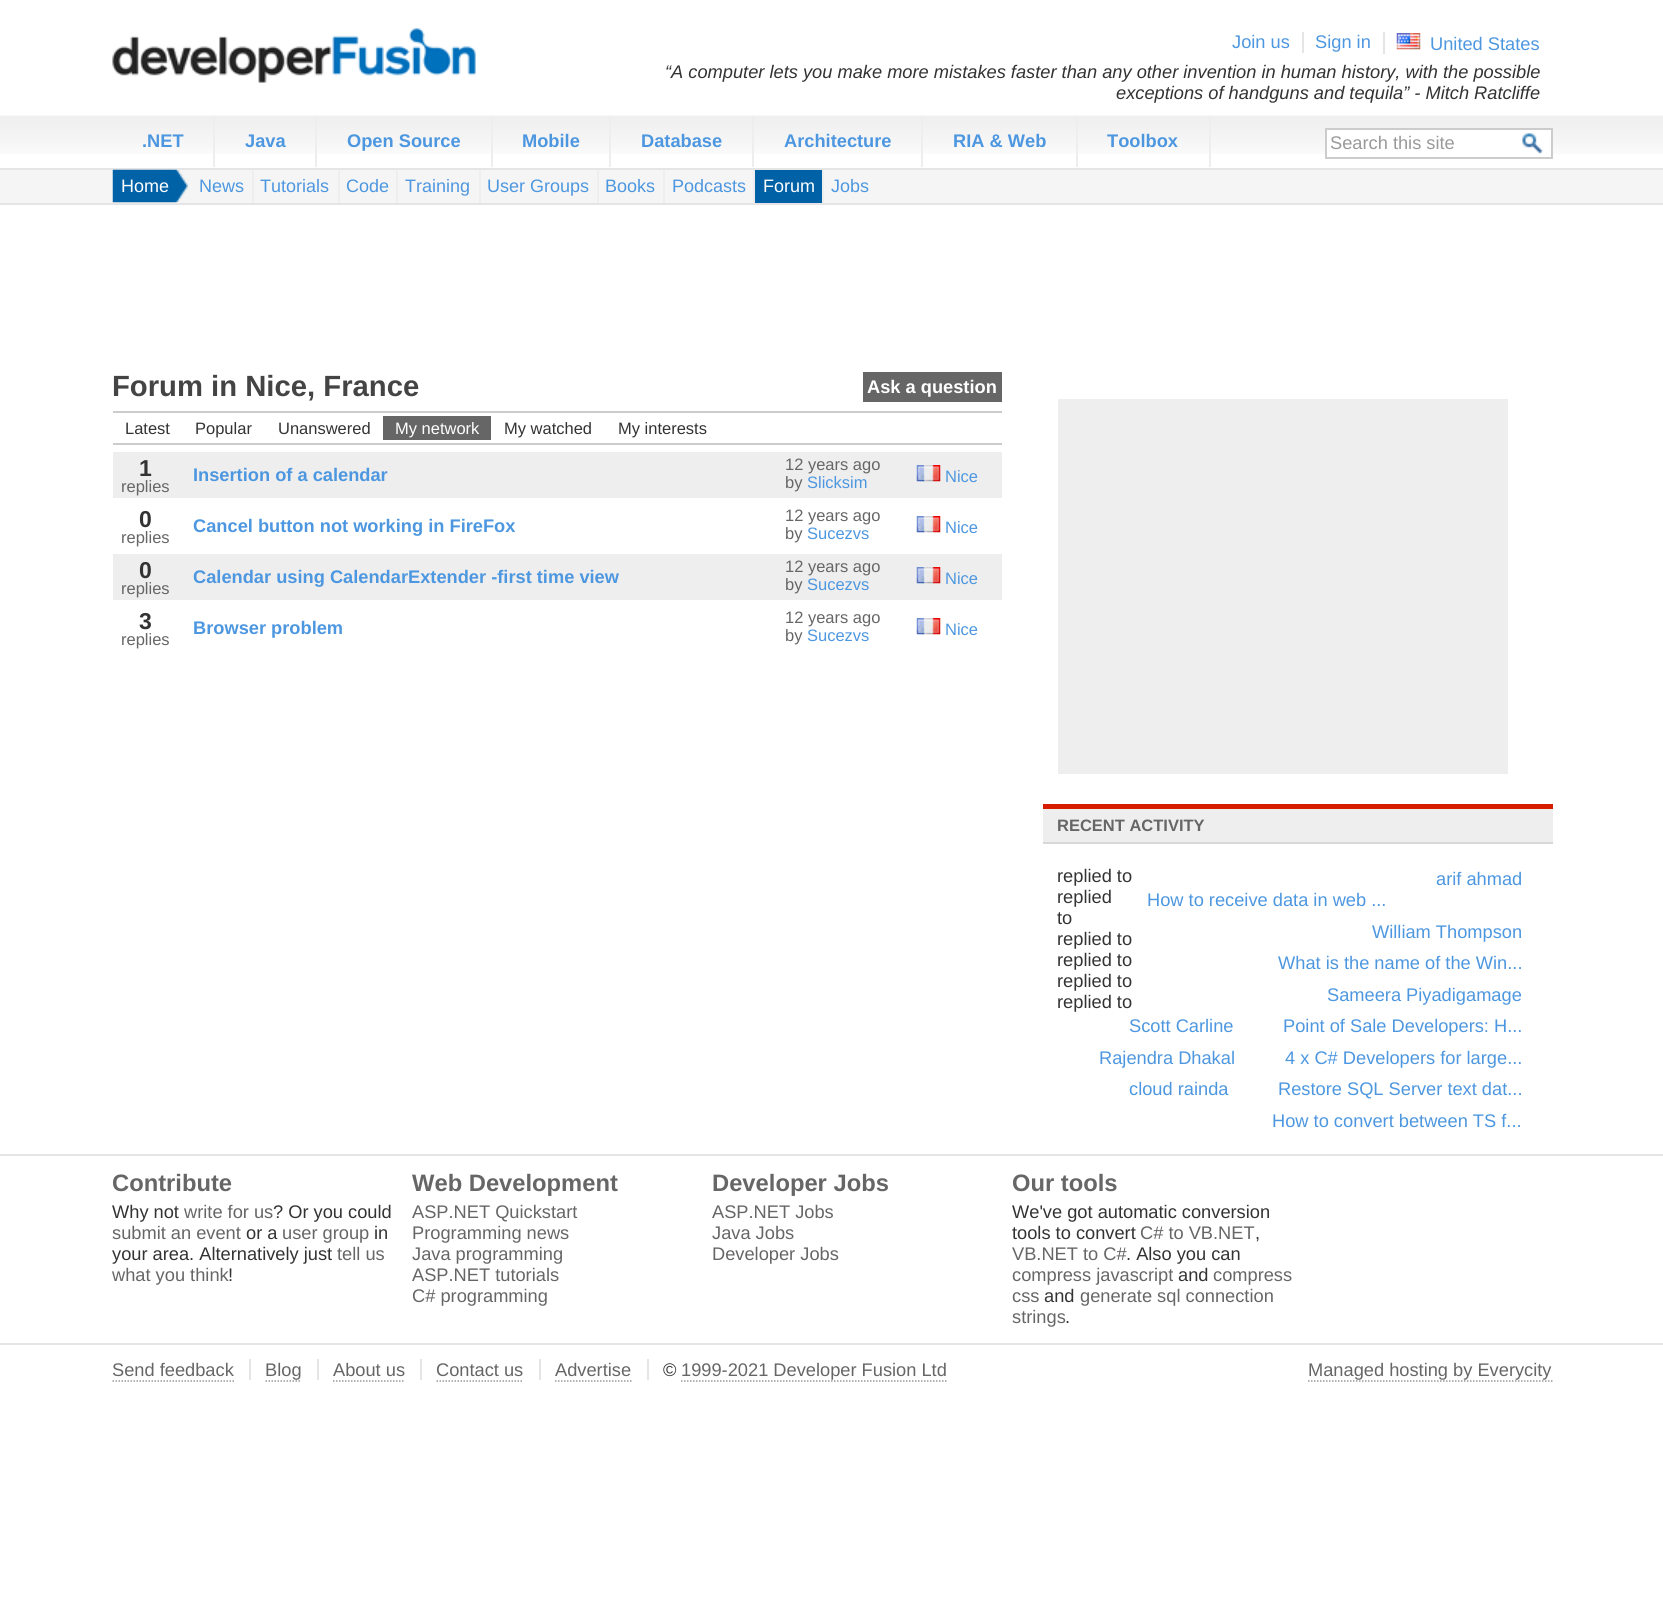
import math
import cairo

surface = cairo.ImageSurface(cairo.Format.RGB24, 1663, 1621)
ctx = cairo.Context(surface)
options = cairo.FontOptions()
options.set_hint_metrics(cairo.HintMetrics.OFF)
options.set_hint_style(cairo.HintStyle.NONE)
ctx.set_font_options(options)
ctx.set_miter_limit(4)


def ink(r, g, b):
    ctx.set_source_rgb(r / 255, g / 255, b / 255)


def write(x, y, s, family, size, color, bold=False, italic=False):
    ctx.select_font_face(family, cairo.FontSlant.ITALIC if italic else cairo.FontSlant.NORMAL, cairo.FontWeight.BOLD if bold else cairo.FontWeight.NORMAL)
    ctx.set_font_size(size)
    ink(*color)
    ctx.move_to(x, y)
    ctx.show_text(s)


def write_spaced(x, y, s, letter, word):
    ctx.move_to(x, y)
    for ch in s:
        ctx.show_text(ch)
        ctx.rel_move_to(letter + word * (ch == ' '), 0)


def block(x, y, w, h, *color):
    ink(*color)
    ctx.rectangle(x, y, w, h)
    ctx.fill()


def paste(path, x, y, w, h):
    ctx.save()
    ctx.set_source_surface(cairo.ImageSurface.create_from_png(path), x, y)
    ctx.rectangle(x, y, w, h)
    ctx.fill()
    ctx.restore()


s1 = dict(family="Liberation Sans", size=18.25, color=(77, 151, 224))
s2 = dict(family="Liberation Sans", size=18.25, color=(51, 51, 51), italic=True)
s3 = dict(family="Liberation Sans", size=18.25, color=(77, 151, 224), bold=True)
s4 = dict(family="Liberation Sans", size=18.25, color=(153, 153, 153))
s5 = dict(family="Liberation Sans", size=18, color=(255, 255, 255))
s6 = dict(family="Liberation Sans", size=18, color=(77, 151, 224))
s7 = dict(family="Liberation Sans", size=29.25, color=(68, 68, 68), bold=True)
s8 = dict(family="Liberation Sans", size=18.25, color=(255, 255, 255), bold=True)
s9 = dict(family="Liberation Sans", size=16.5, color=(51, 51, 51))
s10 = dict(family="Liberation Sans", size=16.5, color=(255, 255, 255))
s11 = dict(family="Liberation Sans", size=16.5, color=(102, 102, 102))
s12 = dict(family="Liberation Sans", size=16.5, color=(77, 151, 224))
s13 = dict(family="Liberation Sans", size=16.5, color=(102, 102, 102), bold=True)
s14 = dict(family="Liberation Sans", size=18.25, color=(51, 51, 51))
s15 = dict(family="Liberation Sans", size=23.75, color=(102, 102, 102), bold=True)
s16 = dict(family="Liberation Sans", size=18.25, color=(102, 102, 102))

ink(255, 255, 255)
ctx.paint()
paste("pic1.png", 112, 28, 364, 55)
write(1232, 48, "Join us", **s1)
block(1302, 32, 2, 21, 229, 229, 229)
write(1315, 48, "Sign in", **s1)
block(1383, 32, 2, 22, 229, 229, 229)
paste("pic2.png", 1396, 33, 25, 17)
write(1430, 50, "United States", **s1)
write(665, 78, "“A computer lets you make more mistakes faster than any other invention in human history, with the possible", **s2)
write(1116, 99, "exceptions of handguns and tequila” - Mitch Ratcliffe", **s2)
paste("pic3.png", 0, 115, 1663, 39)
block(0, 168, 1663, 2, 229, 229, 229)
block(213, 116, 2, 51, 238, 238, 238)
write(142, 147, ".NET", **s3)
block(315, 116, 2, 51, 238, 238, 238)
write(245, 147, "Java", **s3)
block(491, 116, 2, 51, 238, 238, 238)
write(347, 147, "Open Source", **s3)
block(609, 116, 2, 51, 238, 238, 238)
write(522, 147, "Mobile", **s3)
block(752, 116, 2, 51, 238, 238, 238)
write(641, 147, "Database", **s3)
block(921, 116, 2, 51, 238, 238, 238)
write(784, 147, "Architecture", **s3)
block(1076, 116, 2, 51, 238, 238, 238)
write(953, 147, "RIA & Web", **s3)
block(1209, 116, 2, 51, 238, 238, 238)
write(1107, 147, "Toolbox", **s3)
block(1327, 130, 224, 24, 255, 255, 255)
ctx.rectangle(1326, 129, 226, 29)
ink(204, 204, 204)
ctx.stroke()
write(1330, 149, "Search this site", **s4)
paste("pic4.png", 1522, 133, 21, 21)
block(0, 170, 1663, 33, 245, 245, 245)
block(0, 203, 1663, 2, 229, 229, 229)
paste("pic5.png", 112, 169, 77, 34)
write(121, 192, "Home", **s5)
block(252, 170, 2, 33, 238, 238, 238)
write(199, 192, "News", **s6)
block(338, 170, 2, 33, 238, 238, 238)
write(260, 192, "Tutorials", **s6)
block(396, 170, 2, 33, 238, 238, 238)
write(346, 192, "Code", **s6)
block(479, 170, 2, 33, 238, 238, 238)
write(405, 192, "Training", **s6)
block(597, 170, 2, 33, 238, 238, 238)
write(487, 192, "User Groups", **s6)
block(663, 170, 2, 33, 238, 238, 238)
write(605, 192, "Books", **s6)
block(753, 170, 2, 33, 238, 238, 238)
write(672, 192, "Podcasts", **s6)
block(755, 170, 67, 33, 0, 97, 166)
block(822, 170, 2, 33, 238, 238, 238)
write(763, 192, "Forum", **s5)
write(831, 192, "Jobs", **s6)
write(112, 396, "Forum in Nice, France", **s7)
block(863, 372, 139, 30, 102, 102, 102)
write(867, 393, "Ask a question", **s8)
block(113, 411, 889, 2, 204, 204, 204)
block(113, 443, 889, 2, 204, 204, 204)
write(125, 434, "Latest", **s9)
write(195, 434, "Popular", **s9)
write(278, 434, "Unanswered", **s9)
block(383, 416, 108, 24, 102, 102, 102)
write(395, 434, "My network", **s10)
write(504, 434, "My watched", **s9)
write(618, 434, "My interests", **s9)
block(113, 452, 889, 46, 238, 238, 238)
ctx.select_font_face("Liberation Sans", cairo.FontSlant.NORMAL, cairo.FontWeight.BOLD)
ctx.set_font_size(23)
ink(51, 51, 51)
write_spaced(139, 476, "1", -2, 0)
write(121, 492, "replies", **s11)
write(193, 481, "Insertion of a calendar", **s3)
write(785, 470, "12 years ago", **s11)
write(785, 488, "by", **s11)
write(807, 488, "Slicksim", **s12)
paste("pic6.png", 916, 465, 25, 17)
write(945, 482, "Nice", **s12)
ctx.select_font_face("Liberation Sans", cairo.FontSlant.NORMAL, cairo.FontWeight.BOLD)
ctx.set_font_size(23)
ink(51, 51, 51)
write_spaced(139, 527, "0", -2, 0)
write(121, 543, "replies", **s11)
write(193, 532, "Cancel button not working in FireFox", **s3)
write(785, 521, "12 years ago", **s11)
write(785, 539, "by", **s11)
write(807, 539, "Sucezvs", **s12)
paste("pic7.png", 916, 516, 25, 17)
write(945, 533, "Nice", **s12)
block(113, 554, 889, 46, 238, 238, 238)
ctx.select_font_face("Liberation Sans", cairo.FontSlant.NORMAL, cairo.FontWeight.BOLD)
ctx.set_font_size(23)
ink(51, 51, 51)
write_spaced(139, 578, "0", -2, 0)
write(121, 594, "replies", **s11)
write(193, 583, "Calendar using CalendarExtender -first time view", **s3)
write(785, 572, "12 years ago", **s11)
write(785, 590, "by", **s11)
write(807, 590, "Sucezvs", **s12)
paste("pic6.png", 916, 567, 25, 17)
write(945, 584, "Nice", **s12)
ctx.select_font_face("Liberation Sans", cairo.FontSlant.NORMAL, cairo.FontWeight.BOLD)
ctx.set_font_size(23)
ink(51, 51, 51)
write_spaced(139, 629, "3", -2, 0)
write(121, 645, "replies", **s11)
write(193, 634, "Browser problem", **s3)
write(785, 623, "12 years ago", **s11)
write(785, 641, "by", **s11)
write(807, 641, "Sucezvs", **s12)
paste("pic7.png", 916, 618, 25, 17)
write(945, 635, "Nice", **s12)
block(1058, 399, 450, 375, 238, 238, 238)
block(1043, 804, 510, 5, 214, 29, 0)
block(1043, 809, 510, 33, 238, 238, 238)
block(1043, 842, 510, 2, 216, 216, 216)
write(1057, 831, "RECENT ACTIVITY", **s13)
write(1057, 882, "replied to", **s14)
write(1147, 906, "How to receive data in web ...", **s1)
write(1436, 885, "arif ahmad", **s1)
write(1057, 903, "replied", **s14)
write(1057, 924, "to", **s14)
write(1278, 969, "What is the name of the Win...", **s1)
write(1372, 938, "William Thompson", **s1)
write(1057, 945, "replied to", **s14)
write(1283, 1032, "Point of Sale Developers: H...", **s1)
write(1327, 1001, "Sameera Piyadigamage", **s1)
write(1057, 966, "replied to", **s14)
write(1285, 1064, "4 x C# Developers for large...", **s1)
write(1129, 1032, "Scott Carline", **s1)
write(1057, 987, "replied to", **s14)
write(1278, 1095, "Restore SQL Server text dat...", **s1)
write(1099, 1064, "Rajendra Dhakal", **s1)
write(1057, 1008, "replied to", **s14)
write(1272, 1127, "How to convert between TS f...", **s1)
write(1129, 1095, "cloud rainda", **s1)
block(0, 1154, 1663, 2, 229, 229, 229)
write(112, 1191, "Contribute", **s15)
write(112, 1218, "Why not", **s14)
write(184, 1218, "write for us", **s16)
write(273, 1218, "? Or you could", **s14)
write(112, 1239, "submit an event", **s16)
write(246, 1239, "or a", **s14)
write(282, 1239, "user group", **s16)
write(374, 1239, "in", **s14)
write(112, 1260, "your area. Alternatively just", **s14)
write(337, 1260, "tell us", **s16)
write(112, 1281, "what you think", **s16)
write(228, 1281, "!", **s14)
write(412, 1191, "Web Development", **s15)
write(412, 1218, "ASP.NET Quickstart", **s16)
write(412, 1239, "Programming news", **s16)
write(412, 1260, "Java programming", **s16)
write(412, 1281, "ASP.NET tutorials", **s16)
write(412, 1302, "C# programming", **s16)
write(712, 1191, "Developer Jobs", **s15)
write(712, 1218, "ASP.NET Jobs", **s16)
write(712, 1239, "Java Jobs", **s16)
write(712, 1260, "Developer Jobs", **s16)
write(1012, 1191, "Our tools", **s15)
write(1012, 1218, "We've got automatic conversion", **s14)
write(1012, 1239, "tools to convert", **s14)
write(1140, 1239, "C# to VB.NET", **s16)
write(1255, 1239, ",", **s14)
write(1012, 1260, "VB.NET to C#", **s16)
write(1126, 1260, ". Also you can", **s14)
write(1012, 1281, "compress javascript", **s16)
write(1178, 1281, "and", **s14)
write(1213, 1281, "compress", **s16)
write(1012, 1302, "css", **s16)
write(1044, 1302, "and", **s14)
write(1080, 1302, "generate sql connection", **s16)
write(1012, 1323, "strings", **s16)
write(1065, 1323, ".", **s14)
block(0, 1343, 1663, 2, 229, 229, 229)
block(249, 1359, 2, 21, 229, 229, 229)
write(112, 1376, "Send feedback", **s16)
ctx.new_path()
ctx.move_to(112.5, 1381)
ctx.line_to(234, 1381)
ink(153, 153, 153)
ctx.set_line_width(1.5)
ctx.set_dash([1.5, 1.5])
ctx.stroke()
block(317, 1359, 2, 21, 229, 229, 229)
write(265, 1376, "Blog", **s16)
ctx.new_path()
ctx.move_to(265.5, 1381)
ctx.line_to(301.5, 1381)
ink(153, 153, 153)
ctx.stroke()
block(420, 1359, 2, 21, 229, 229, 229)
write(333, 1376, "About us", **s16)
ctx.new_path()
ctx.move_to(333, 1381)
ctx.line_to(405, 1381)
ink(153, 153, 153)
ctx.stroke()
block(539, 1359, 2, 21, 229, 229, 229)
write(436, 1376, "Contact us", **s16)
ctx.new_path()
ctx.move_to(436.5, 1381)
ctx.line_to(523.5, 1381)
ink(153, 153, 153)
ctx.stroke()
block(647, 1359, 2, 21, 229, 229, 229)
write(555, 1376, "Advertise", **s16)
ctx.new_path()
ctx.move_to(555, 1381)
ctx.line_to(631.5, 1381)
ink(153, 153, 153)
ctx.stroke()
write(663, 1376, "©", **s14)
write(681, 1376, "1999-2021 Developer Fusion Ltd", **s16)
ctx.new_path()
ctx.move_to(681, 1381)
ctx.line_to(946.5, 1381)
ink(153, 153, 153)
ctx.stroke()
write(1308, 1376, "Managed hosting by Everycity", **s16)
ctx.new_path()
ctx.move_to(1308, 1381)
ctx.line_to(1552.5, 1381)
ink(153, 153, 153)
ctx.stroke()
surface.write_to_png("screenshot.png")
